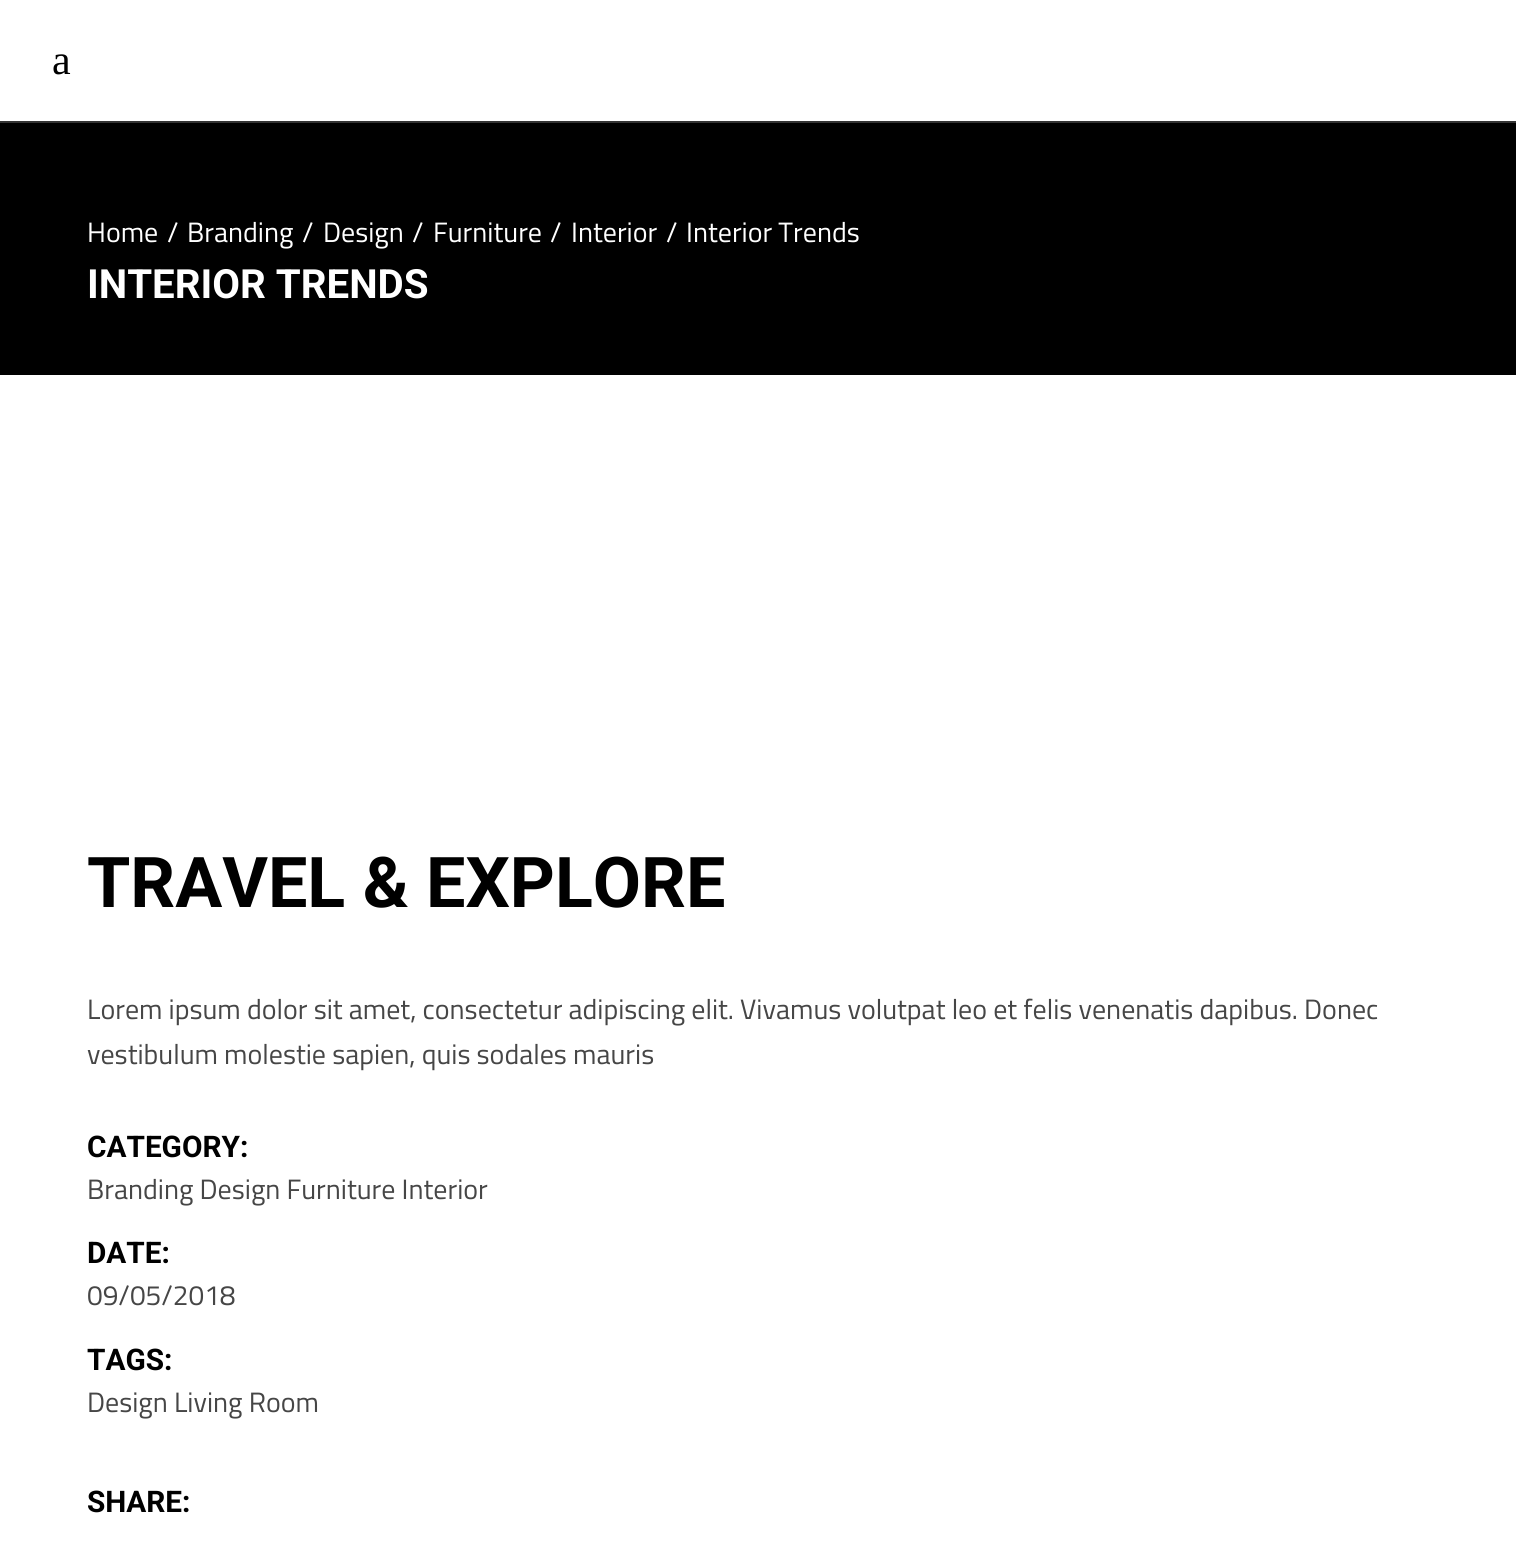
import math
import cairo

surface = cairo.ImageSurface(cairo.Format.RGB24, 1516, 1555)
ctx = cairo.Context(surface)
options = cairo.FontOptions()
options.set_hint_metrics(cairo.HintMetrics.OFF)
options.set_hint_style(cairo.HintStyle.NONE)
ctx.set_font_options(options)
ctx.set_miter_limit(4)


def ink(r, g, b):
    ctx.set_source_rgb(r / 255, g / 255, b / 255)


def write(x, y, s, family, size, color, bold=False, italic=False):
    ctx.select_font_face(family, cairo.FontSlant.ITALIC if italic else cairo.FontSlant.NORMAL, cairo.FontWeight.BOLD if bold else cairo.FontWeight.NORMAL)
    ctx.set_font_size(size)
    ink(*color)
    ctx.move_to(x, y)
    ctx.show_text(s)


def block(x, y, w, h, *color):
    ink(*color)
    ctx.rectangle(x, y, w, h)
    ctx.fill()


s1 = dict(family="Liberation Serif", size=42, color=(0, 0, 0))
s2 = dict(family="Titillium Web", size=28, color=(255, 255, 255))
s3 = dict(family="Roboto", size=40.25, color=(255, 255, 255), bold=True)
s4 = dict(family="Roboto", size=70, color=(0, 0, 0), bold=True)
s5 = dict(family="Titillium Web", size=28, color=(70, 70, 70))
s6 = dict(family="Roboto", size=29.75, color=(0, 0, 0), bold=True)

ink(255, 255, 255)
ctx.paint()
block(0, 121, 1516, 2, 52, 52, 52)
write(52, 74, "a", **s1)
block(0, 123, 1516, 252, 0, 0, 0)
write(87, 242, "Home", **s2)
write(167, 242, "/", **s2)
write(187, 242, "Branding", **s2)
write(302, 242, "/", **s2)
write(323, 242, "Design", **s2)
write(412, 242, "/", **s2)
write(433, 242, "Furniture", **s2)
write(550, 242, "/", **s2)
write(571, 242, "Interior", **s2)
write(666, 242, "/", **s2)
write(686, 242, "Interior Trends", **s2)
write(87, 298, "INTERIOR TRENDS", **s3)
write(87, 907, "TRAVEL & EXPLORE", **s4)
write(87, 1019, "Lorem ipsum dolor sit amet, consectetur adipiscing elit. Vivamus volutpat leo et felis venenatis dapibus. Donec", **s5)
write(87, 1064, "vestibulum molestie sapien, quis sodales mauris", **s5)
write(87, 1157, "CATEGORY:", **s6)
write(87, 1199, "Branding Design Furniture Interior", **s5)
write(87, 1263, "DATE:", **s6)
write(87, 1305, "09/05/2018", **s5)
write(87, 1370, "TAGS:", **s6)
write(87, 1412, "Design Living Room", **s5)
write(87, 1512, "SHARE:", **s6)
surface.write_to_png("screenshot.png")
